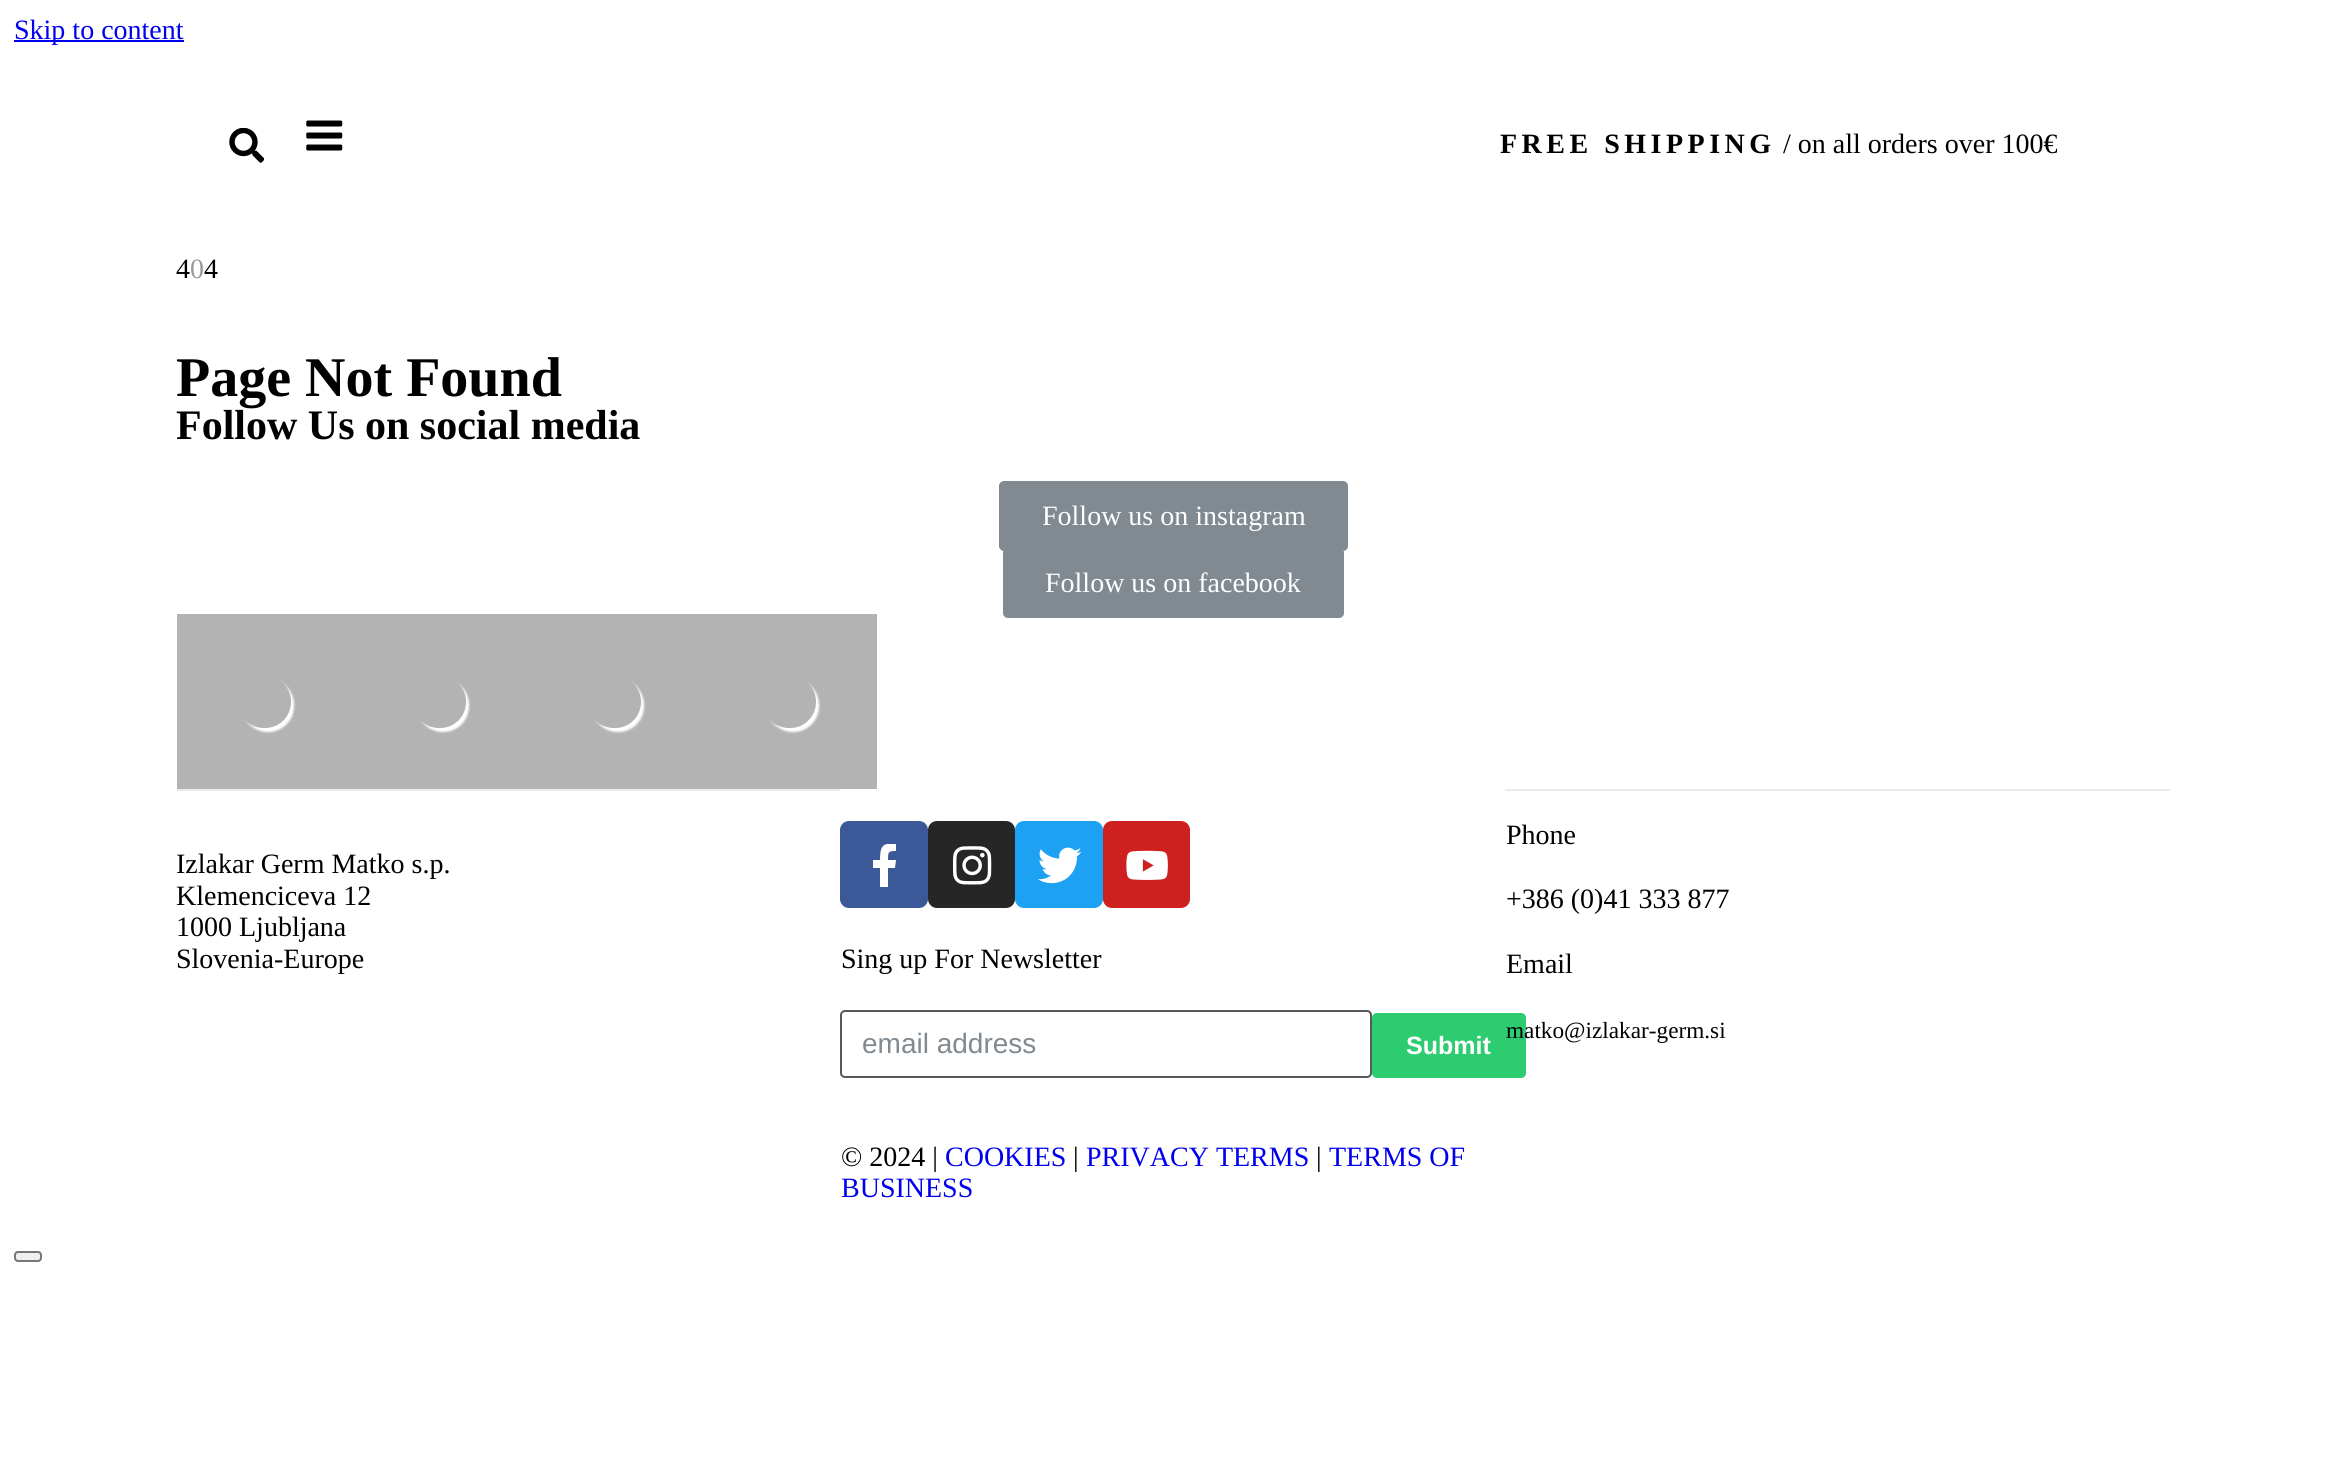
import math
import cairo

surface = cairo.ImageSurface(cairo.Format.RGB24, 2346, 1470)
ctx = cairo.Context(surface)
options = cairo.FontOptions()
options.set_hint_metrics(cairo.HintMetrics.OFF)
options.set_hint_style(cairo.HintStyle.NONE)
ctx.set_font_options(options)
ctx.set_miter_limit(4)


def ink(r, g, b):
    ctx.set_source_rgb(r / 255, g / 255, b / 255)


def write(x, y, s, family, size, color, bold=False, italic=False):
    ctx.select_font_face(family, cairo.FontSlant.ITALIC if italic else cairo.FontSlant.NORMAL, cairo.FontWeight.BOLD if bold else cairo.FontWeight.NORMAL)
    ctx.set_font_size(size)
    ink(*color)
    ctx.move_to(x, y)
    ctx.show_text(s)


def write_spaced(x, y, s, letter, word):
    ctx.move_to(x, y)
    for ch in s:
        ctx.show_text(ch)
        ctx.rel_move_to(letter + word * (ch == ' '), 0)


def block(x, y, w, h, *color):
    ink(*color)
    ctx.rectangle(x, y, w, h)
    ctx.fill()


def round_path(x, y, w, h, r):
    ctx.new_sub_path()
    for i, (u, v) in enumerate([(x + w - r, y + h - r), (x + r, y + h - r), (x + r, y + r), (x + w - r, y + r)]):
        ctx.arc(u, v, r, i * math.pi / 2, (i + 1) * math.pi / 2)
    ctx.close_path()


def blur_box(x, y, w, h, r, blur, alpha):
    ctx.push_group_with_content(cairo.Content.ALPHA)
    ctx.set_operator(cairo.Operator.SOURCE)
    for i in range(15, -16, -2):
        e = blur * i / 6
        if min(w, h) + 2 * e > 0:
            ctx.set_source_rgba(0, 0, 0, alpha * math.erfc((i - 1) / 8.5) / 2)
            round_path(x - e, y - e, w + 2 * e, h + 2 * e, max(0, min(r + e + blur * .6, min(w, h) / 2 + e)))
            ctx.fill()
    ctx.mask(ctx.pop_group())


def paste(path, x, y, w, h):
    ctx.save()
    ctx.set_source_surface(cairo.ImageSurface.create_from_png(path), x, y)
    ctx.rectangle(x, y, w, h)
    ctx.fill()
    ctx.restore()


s1 = dict(family="Liberation Serif", size=28, color=(0, 0, 238))
s2 = dict(family="Liberation Serif", size=28, color=(0, 0, 0))
s3 = dict(family="Liberation Serif", size=28, color=(153, 153, 153))
s4 = dict(family="Liberation Serif", size=56, color=(0, 0, 0), bold=True)
s5 = dict(family="Liberation Serif", size=42, color=(0, 0, 0), bold=True)
s6 = dict(family="Liberation Serif", size=28, color=(255, 255, 255))
s7 = dict(family="Liberation Serif", size=23.25, color=(0, 0, 0))
s8 = dict(family="Liberation Sans", size=28, color=(129, 138, 145))
s9 = dict(family="Liberation Sans", size=25, color=(255, 255, 255), bold=True)

ink(255, 255, 255)
ctx.paint()
block(14, 40, 170, 2, 0, 0, 238)
write(14, 39, "Skip to content", **s1)
paste("pic1.png", 229, 128, 35, 35)
paste("pic2.png", 306, 120, 37, 31)
ctx.select_font_face("Liberation Serif", cairo.FontSlant.NORMAL, cairo.FontWeight.BOLD)
ink(0, 0, 0)
write_spaced(1500, 153, "FREE SHIPPING", 4.5, 0)
write(1783, 153, "/ on all orders over 100€", **s2)
write(176, 278, "4", **s2)
write(190, 278, "0", **s3)
write(204, 278, "4", **s2)
write(176, 396, "Page Not Found", **s4)
write(176, 439, "Follow Us on social media", **s5)
ink(129, 138, 145)
round_path(999, 481, 349, 70, 5)
ctx.fill()
write(1042, 525, "Follow us on instagram", **s6)
ink(129, 138, 145)
round_path(1003, 548, 341, 70, 5)
ctx.fill()
write(1045, 592, "Follow us on facebook", **s6)
block(177, 614, 700, 175, 179, 179, 179)
ctx.save()
ctx.set_fill_rule(cairo.FillRule.EVEN_ODD)
ctx.new_path()
ctx.move_to(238, 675)
ctx.line_to(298, 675)
ctx.line_to(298, 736)
ctx.line_to(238, 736)
ctx.close_path()
ctx.move_to(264, 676)
ctx.line_to(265, 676)
ctx.curve_to(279.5, 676, 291, 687.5, 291, 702)
ctx.curve_to(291, 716.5, 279.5, 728, 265, 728)
ctx.line_to(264, 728)
ctx.curve_to(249.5, 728, 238, 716.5, 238, 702)
ctx.curve_to(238, 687.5, 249.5, 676, 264, 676)
ctx.close_path()
ctx.clip()
ink(255, 255, 255)
blur_box(242, 679, 52, 53, 26, 1, 1)
ctx.restore()
ctx.save()
ctx.set_fill_rule(cairo.FillRule.EVEN_ODD)
ctx.new_path()
ctx.move_to(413, 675)
ctx.line_to(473, 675)
ctx.line_to(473, 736)
ctx.line_to(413, 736)
ctx.close_path()
ctx.move_to(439, 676)
ctx.line_to(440, 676)
ctx.curve_to(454.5, 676, 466, 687.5, 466, 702)
ctx.curve_to(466, 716.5, 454.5, 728, 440, 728)
ctx.line_to(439, 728)
ctx.curve_to(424.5, 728, 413, 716.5, 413, 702)
ctx.curve_to(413, 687.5, 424.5, 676, 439, 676)
ctx.close_path()
ctx.clip()
ink(255, 255, 255)
blur_box(417, 679, 52, 53, 26, 1, 1)
ctx.restore()
ctx.save()
ctx.set_fill_rule(cairo.FillRule.EVEN_ODD)
ctx.new_path()
ctx.move_to(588, 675)
ctx.line_to(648, 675)
ctx.line_to(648, 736)
ctx.line_to(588, 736)
ctx.close_path()
ctx.move_to(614, 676)
ctx.line_to(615, 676)
ctx.curve_to(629.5, 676, 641, 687.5, 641, 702)
ctx.curve_to(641, 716.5, 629.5, 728, 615, 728)
ctx.line_to(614, 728)
ctx.curve_to(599.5, 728, 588, 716.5, 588, 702)
ctx.curve_to(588, 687.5, 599.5, 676, 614, 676)
ctx.close_path()
ctx.clip()
ink(255, 255, 255)
blur_box(592, 679, 52, 53, 26, 1, 1)
ctx.restore()
ctx.save()
ctx.set_fill_rule(cairo.FillRule.EVEN_ODD)
ctx.new_path()
ctx.move_to(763, 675)
ctx.line_to(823, 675)
ctx.line_to(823, 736)
ctx.line_to(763, 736)
ctx.close_path()
ctx.move_to(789, 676)
ctx.line_to(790, 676)
ctx.curve_to(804.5, 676, 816, 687.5, 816, 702)
ctx.curve_to(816, 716.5, 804.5, 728, 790, 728)
ctx.line_to(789, 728)
ctx.curve_to(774.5, 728, 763, 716.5, 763, 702)
ctx.curve_to(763, 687.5, 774.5, 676, 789, 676)
ctx.close_path()
ctx.clip()
ink(255, 255, 255)
blur_box(767, 679, 52, 53, 26, 1, 1)
ctx.restore()
block(177, 789, 663, 2, 235, 235, 235)
block(1505, 789, 665, 2, 235, 235, 235)
write(176, 873, "Izlakar Germ Matko s.p.", **s2)
write(176, 905, "Klemenciceva 12", **s2)
write(176, 936, "1000 Ljubljana", **s2)
write(176, 968, "Slovenia-Europe", **s2)
write(1506, 844, "Phone", **s2)
write(1506, 908, "+386 (0)41 333 877", **s2)
write(1506, 973, "Email", **s2)
ink(46, 204, 113)
round_path(1372, 1013, 154, 65, 5)
ctx.fill()
write(1506, 1038, "matko@izlakar-germ.si", **s7)
ink(59, 89, 152)
round_path(840, 821, 88, 87, 9)
ctx.fill()
ctx.save()
ctx.rectangle(863, 844, 44, 43)
ctx.clip()
ink(255, 255, 255)
ctx.new_path()
ctx.move_to(895, 868)
ctx.line_to(896, 860)
ctx.line_to(888, 860)
ctx.curve_to(888, 852, 888, 851, 896, 851)
ctx.line_to(896, 844)
ctx.curve_to(882, 842, 880, 847, 880, 860)
ctx.line_to(873, 860)
ctx.line_to(873, 868)
ctx.line_to(880, 868)
ctx.line_to(880, 887)
ctx.line_to(888, 887)
ctx.line_to(888, 868)
ctx.close_path()
ctx.fill()
ctx.restore()
ink(38, 38, 38)
round_path(928, 821, 87, 87, 9)
ctx.fill()
paste("pic3.png", 953, 846, 39, 39)
ink(29, 161, 242)
round_path(1015, 821, 88, 87, 9)
ctx.fill()
paste("pic4.png", 1038, 847, 44, 37)
ink(205, 32, 31)
round_path(1103, 821, 87, 87, 9)
ctx.fill()
paste("pic5.png", 1126, 850, 42, 30)
write(841, 968, "Sing up For Newsletter", **s2)
round_path(841, 1011, 530, 66, 4)
ink(85, 89, 92)
ctx.stroke()
write(862, 1053, "email address", **s8)
write(1406, 1054, "Submit", **s9)
write(841, 1166, "© 2024 |", **s2)
write(945, 1166, "COOKIES", **s1)
write(1073, 1166, "|", **s2)
write(1086, 1166, "PRIVACY TERMS", **s1)
write(1316, 1166, "|", **s2)
write(1329, 1166, "TERMS OF", **s1)
write(841, 1197, "BUSINESS", **s1)
ink(239, 239, 239)
round_path(15, 1252, 26, 9, 3)
ctx.fill_preserve()
ink(118, 118, 118)
ctx.stroke()
surface.write_to_png("screenshot.png")
